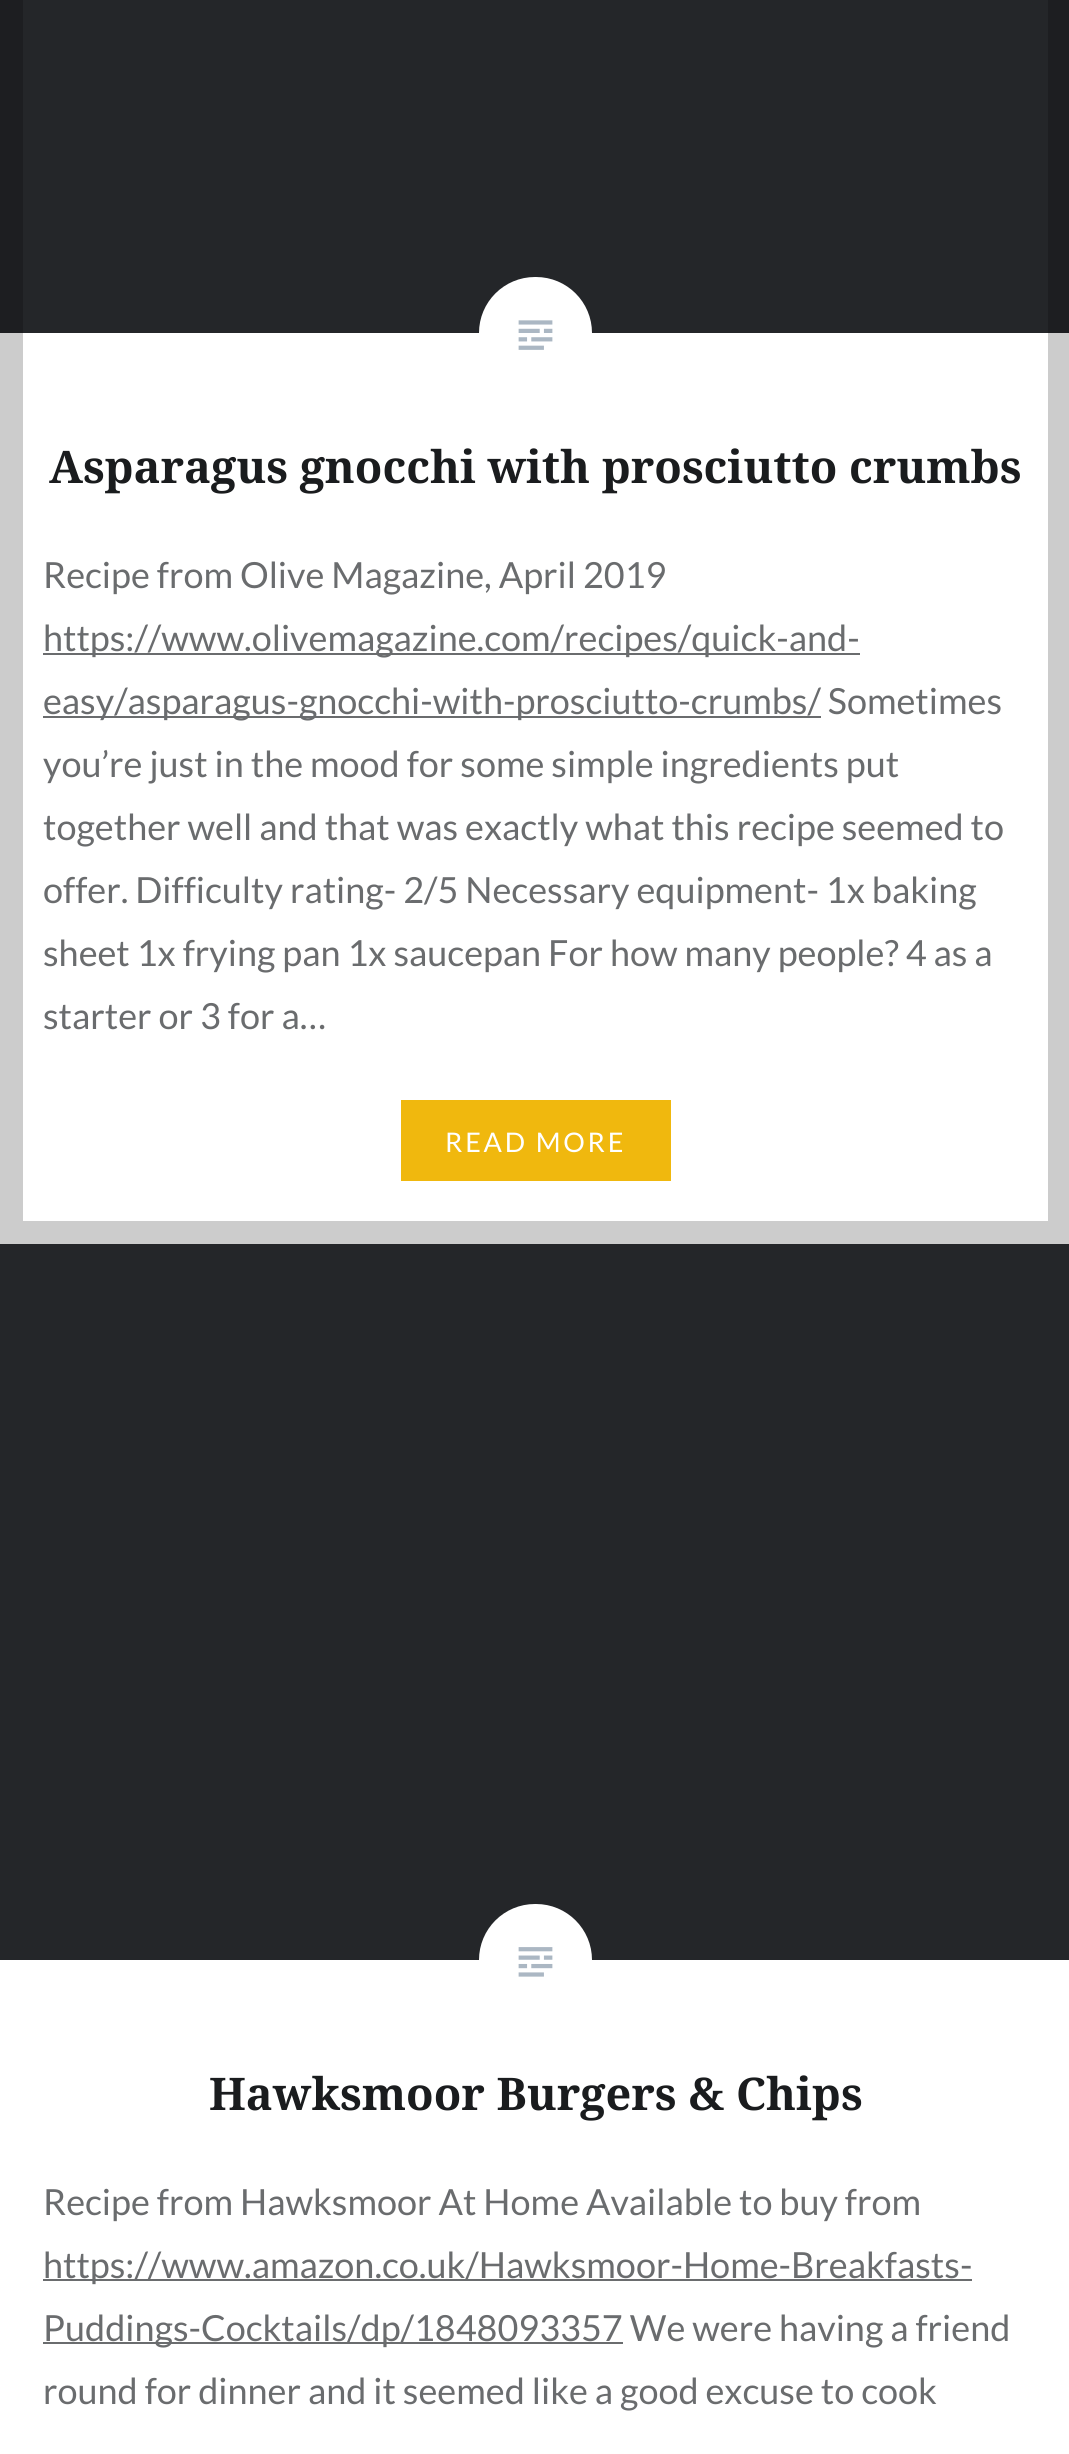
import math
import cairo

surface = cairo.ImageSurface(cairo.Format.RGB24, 1069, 2454)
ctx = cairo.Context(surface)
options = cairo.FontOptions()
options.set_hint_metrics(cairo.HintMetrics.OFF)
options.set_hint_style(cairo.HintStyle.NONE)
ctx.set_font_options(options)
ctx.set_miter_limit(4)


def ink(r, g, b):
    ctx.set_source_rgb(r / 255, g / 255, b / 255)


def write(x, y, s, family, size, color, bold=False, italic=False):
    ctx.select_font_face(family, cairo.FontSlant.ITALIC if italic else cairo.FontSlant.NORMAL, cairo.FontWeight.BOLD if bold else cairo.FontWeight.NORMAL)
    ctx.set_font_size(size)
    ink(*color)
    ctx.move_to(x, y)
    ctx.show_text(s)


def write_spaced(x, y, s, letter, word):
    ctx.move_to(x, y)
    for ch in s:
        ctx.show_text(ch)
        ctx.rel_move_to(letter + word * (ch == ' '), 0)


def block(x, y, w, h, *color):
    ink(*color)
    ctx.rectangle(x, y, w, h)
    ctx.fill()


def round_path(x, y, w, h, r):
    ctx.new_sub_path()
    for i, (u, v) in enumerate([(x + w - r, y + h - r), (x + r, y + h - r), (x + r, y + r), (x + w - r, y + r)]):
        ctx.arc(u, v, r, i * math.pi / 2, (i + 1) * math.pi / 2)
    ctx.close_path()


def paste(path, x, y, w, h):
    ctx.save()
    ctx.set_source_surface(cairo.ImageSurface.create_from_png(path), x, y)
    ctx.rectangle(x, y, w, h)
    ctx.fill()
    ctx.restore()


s1 = dict(family="Noto Serif", size=45, color=(26, 28, 30), bold=True)
s2 = dict(family="Lato", size=36, color=(106, 108, 110))

ink(255, 255, 255)
ctx.paint()
block(0, 0, 1069, 333, 36, 38, 41)
ink(255, 255, 255)
round_path(479, 277, 113, 112, 56)
ctx.fill()
block(43, 653, 817, 2, 106, 108, 110)
block(43, 716, 778, 2, 106, 108, 110)
ctx.rectangle(11.5, -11.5, 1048, 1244)
ctx.set_source_rgba(0, 0, 0, 0.2)
ctx.set_line_width(23)
ctx.stroke()
paste("pic1.png", 518, 320, 35, 30)
write(49, 483, "Asparagus gnocchi with prosciutto crumbs", **s1)
write(43, 588, "Recipe from Olive Magazine, April 2019", **s2)
write(43, 651, "https://www.olivemagazine.com/recipes/quick-and-", **s2)
write(43, 714, "easy/asparagus-gnocchi-with-prosciutto-crumbs/ Sometimes", **s2)
write(43, 777, "you’re just in the mood for some simple ingredients put", **s2)
write(43, 840, "together well and that was exactly what this recipe seemed to", **s2)
write(43, 903, "offer. Difficulty rating- 2/5 Necessary equipment- 1x baking", **s2)
write(43, 966, "sheet 1x frying pan 1x saucepan For how many people? 4 as a", **s2)
write(43, 1029, "starter or 3 for a…", **s2)
block(401, 1100, 270, 81, 240, 184, 14)
ctx.set_font_size(27)
ink(255, 255, 255)
write_spaced(445, 1152, "READ MORE", 2.75, 0)
block(0, 1244, 1069, 716, 36, 38, 41)
ink(255, 255, 255)
round_path(479, 1904, 113, 112, 56)
ctx.fill()
paste("pic2.png", 518, 1947, 35, 30)
write(209, 2110, "Hawksmoor Burgers & Chips", **s1)
write(43, 2215, "Recipe from Hawksmoor At Home Available to buy from", **s2)
block(43, 2279, 929, 2, 106, 108, 110)
write(43, 2278, "https://www.amazon.co.uk/Hawksmoor-Home-Breakfasts-", **s2)
block(43, 2342, 580, 2, 106, 108, 110)
write(43, 2341, "Puddings-Cocktails/dp/1848093357 We were having a friend", **s2)
write(43, 2404, "round for dinner and it seemed like a good excuse to cook", **s2)
surface.write_to_png("screenshot.png")
